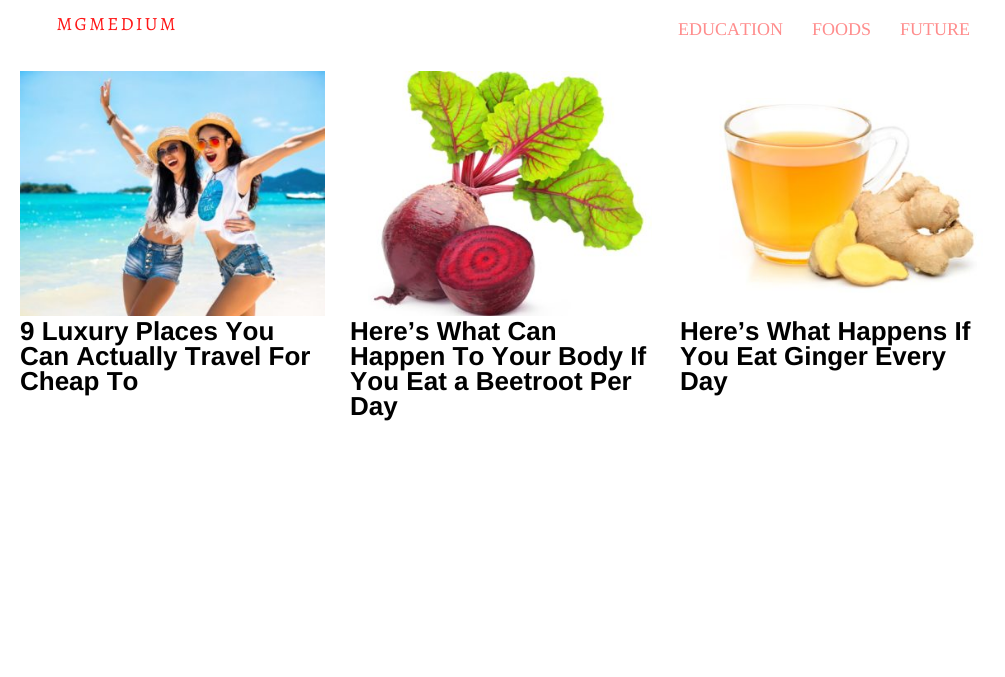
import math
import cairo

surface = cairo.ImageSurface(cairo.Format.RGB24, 1005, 677)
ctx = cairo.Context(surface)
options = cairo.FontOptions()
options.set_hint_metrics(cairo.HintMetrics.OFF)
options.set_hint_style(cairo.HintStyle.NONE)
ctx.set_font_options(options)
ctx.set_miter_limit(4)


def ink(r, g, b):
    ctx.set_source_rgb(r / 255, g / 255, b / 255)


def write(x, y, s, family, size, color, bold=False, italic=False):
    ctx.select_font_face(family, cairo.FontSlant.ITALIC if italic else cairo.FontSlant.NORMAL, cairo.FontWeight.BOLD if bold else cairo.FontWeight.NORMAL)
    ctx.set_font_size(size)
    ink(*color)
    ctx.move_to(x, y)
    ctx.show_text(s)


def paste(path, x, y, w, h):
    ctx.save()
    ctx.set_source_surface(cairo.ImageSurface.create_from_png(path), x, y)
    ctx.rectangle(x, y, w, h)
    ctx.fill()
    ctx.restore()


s1 = dict(family="Liberation Serif", size=18, color=(255, 140, 140))
s2 = dict(family="Liberation Sans", size=26, color=(0, 0, 0), bold=True)

ink(255, 255, 255)
ctx.paint()
paste("pic1.png", 57, 17, 118, 14)
write(678, 35, "EDUCATION", **s1)
write(812, 35, "FOODS", **s1)
write(900, 35, "FUTURE", **s1)
paste("pic2.png", 20, 71, 305, 245)
write(20, 340, "9 Luxury Places You", **s2)
write(20, 365, "Can Actually Travel For", **s2)
write(20, 390, "Cheap To", **s2)
paste("pic3.png", 368, 71, 284, 245)
write(350, 340, "Here’s What Can", **s2)
write(350, 365, "Happen To Your Body If", **s2)
write(350, 390, "You Eat a Beetroot Per", **s2)
write(350, 415, "Day", **s2)
paste("pic4.png", 719, 98, 264, 195)
write(680, 340, "Here’s What Happens If", **s2)
write(680, 365, "You Eat Ginger Every", **s2)
write(680, 390, "Day", **s2)
surface.write_to_png("screenshot.png")
